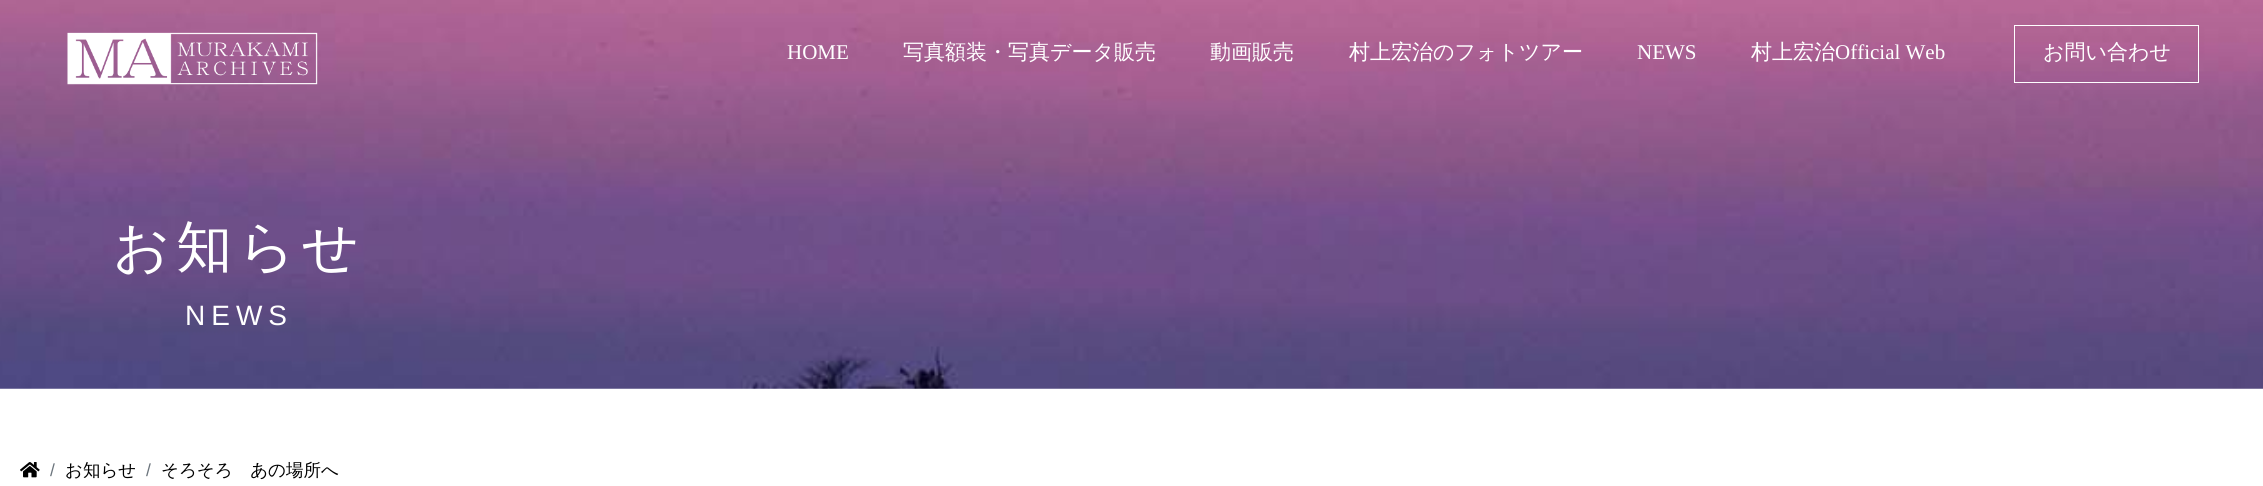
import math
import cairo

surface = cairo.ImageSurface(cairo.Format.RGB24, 2263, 486)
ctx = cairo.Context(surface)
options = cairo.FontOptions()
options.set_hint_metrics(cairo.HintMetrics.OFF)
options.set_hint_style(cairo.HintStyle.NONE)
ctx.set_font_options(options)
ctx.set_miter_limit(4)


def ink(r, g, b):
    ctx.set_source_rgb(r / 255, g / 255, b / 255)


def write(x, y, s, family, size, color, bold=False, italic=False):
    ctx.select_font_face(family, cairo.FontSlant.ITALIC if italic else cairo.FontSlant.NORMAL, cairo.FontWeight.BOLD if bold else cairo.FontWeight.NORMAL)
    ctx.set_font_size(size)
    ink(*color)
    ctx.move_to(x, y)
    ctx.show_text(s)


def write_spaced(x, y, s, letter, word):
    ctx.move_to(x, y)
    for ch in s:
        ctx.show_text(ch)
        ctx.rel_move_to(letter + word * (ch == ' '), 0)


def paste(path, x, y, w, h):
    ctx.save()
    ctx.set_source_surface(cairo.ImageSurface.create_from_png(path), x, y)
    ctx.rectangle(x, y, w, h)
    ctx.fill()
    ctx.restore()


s1 = dict(family="Liberation Serif", size=21, color=(255, 255, 255))
s2 = dict(family="WenQuanYi Zen Hei Medium", size=21, color=(255, 255, 255))
s3 = dict(family="Liberation Sans", size=17.5, color=(108, 117, 125))
s4 = dict(family="WenQuanYi Zen Hei Medium", size=17.5, color=(0, 0, 0))

ink(255, 255, 255)
ctx.paint()
paste("pic2.png", 0, 0, 2263, 389)
paste("pic1.png", 67, 32, 251, 53)
write(787, 59, "HOME", **s1)
write(903, 59, "写真額装・写真データ販売", **s2)
write(1210, 59, "動画販売", **s2)
write(1349, 59, "村上宏治のフォトツアー", **s2)
write(1637, 59, "NEWS", **s1)
write(1751, 59, "村上宏治", **s2)
write(1835, 59, "Official Web", **s1)
ctx.rectangle(2014.5, 25.5, 184, 57)
ctx.set_line_width(1)
ctx.stroke()
write(2043, 59, "お問い合わせ", **s2)
ctx.set_font_size(56)
write_spaced(113, 266, "お知らせ", 6, 0)
ctx.select_font_face("Liberation Sans")
ctx.set_font_size(28)
write_spaced(185, 325, "NEWS", 6, 0)
paste("pic3.png", 20, 462, 20, 16)
write(50, 476, "/", **s3)
write(65, 476, "お知らせ", **s4)
write(146, 476, "/", **s3)
write(161, 476, "そろそろ　あの場所へ", **s4)
surface.write_to_png("screenshot.png")
